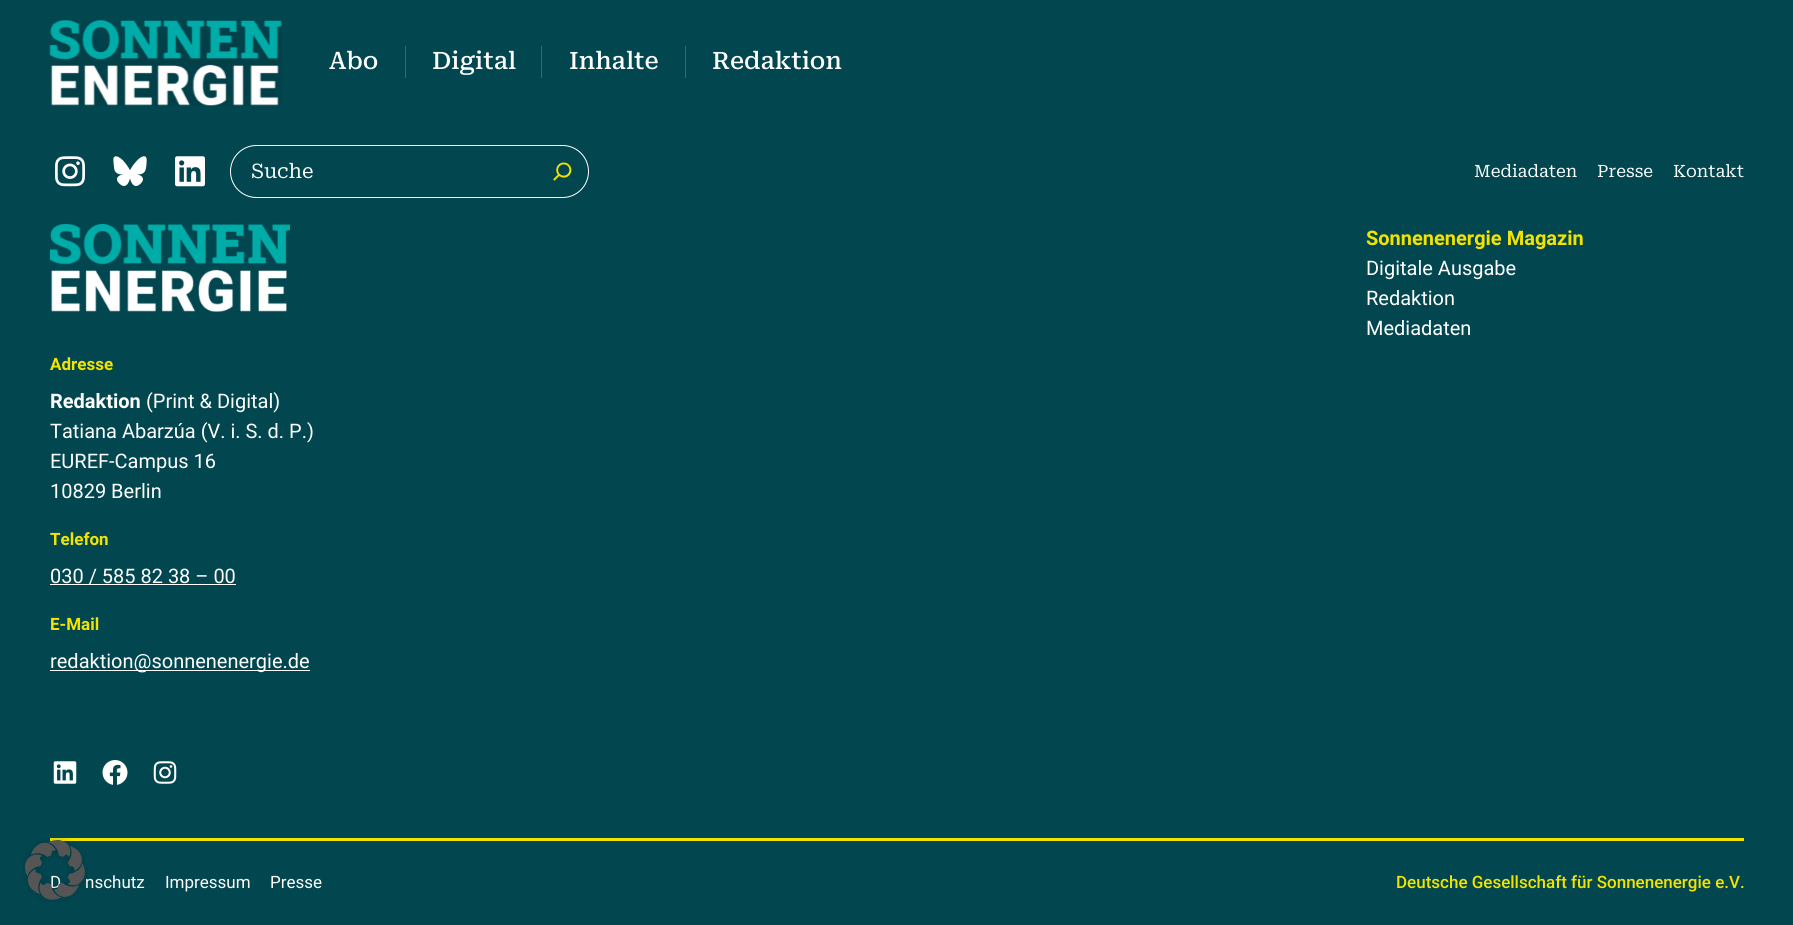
import math
import cairo

surface = cairo.ImageSurface(cairo.Format.RGB24, 1793, 925)
ctx = cairo.Context(surface)
options = cairo.FontOptions()
options.set_hint_metrics(cairo.HintMetrics.OFF)
options.set_hint_style(cairo.HintStyle.NONE)
ctx.set_font_options(options)
ctx.set_miter_limit(4)


def ink(r, g, b):
    ctx.set_source_rgb(r / 255, g / 255, b / 255)


def write(x, y, s, family, size, color, bold=False, italic=False):
    ctx.select_font_face(family, cairo.FontSlant.ITALIC if italic else cairo.FontSlant.NORMAL, cairo.FontWeight.BOLD if bold else cairo.FontWeight.NORMAL)
    ctx.set_font_size(size)
    ink(*color)
    ctx.move_to(x, y)
    ctx.show_text(s)


def block(x, y, w, h, *color):
    ink(*color)
    ctx.rectangle(x, y, w, h)
    ctx.fill()


def round_path(x, y, w, h, r):
    ctx.new_sub_path()
    for i, (u, v) in enumerate([(x + w - r, y + h - r), (x + r, y + h - r), (x + r, y + r), (x + w - r, y + r)]):
        ctx.arc(u, v, r, i * math.pi / 2, (i + 1) * math.pi / 2)
    ctx.close_path()


def paste(path, x, y, w, h):
    ctx.save()
    ctx.set_source_surface(cairo.ImageSurface.create_from_png(path), x, y)
    ctx.rectangle(x, y, w, h)
    ctx.fill()
    ctx.restore()


s1 = dict(family="Roboto Serif Medium", size=24, color=(255, 255, 255))
s2 = dict(family="Roboto Serif", size=20, color=(255, 255, 255))
s3 = dict(family="Roboto Serif", size=17, color=(255, 255, 255))
s4 = dict(family="Roboto", size=20, color=(242, 228, 0), bold=True)
s5 = dict(family="Roboto", size=20, color=(255, 255, 255))
s6 = dict(family="Roboto", size=17, color=(242, 228, 0), bold=True)
s7 = dict(family="Roboto", size=20, color=(255, 255, 255), bold=True)
s8 = dict(family="Roboto", size=17, color=(255, 255, 255))
s9 = dict(family="Roboto Medium", size=17, color=(242, 228, 0))

ink(2, 71, 80)
ctx.paint()
paste("pic1.png", 49, 20, 233, 86)
write(329, 69, "Abo", **s1)
block(405, 46, 1, 32, 53, 108, 115)
write(432, 69, "Digital", **s1)
block(541, 46, 1, 32, 53, 108, 115)
write(569, 69, "Inhalte", **s1)
block(685, 46, 1, 32, 53, 108, 115)
write(712, 69, "Redaktion", **s1)
paste("pic2.png", 55, 156, 30, 31)
paste("pic3.png", 113, 156, 34, 30)
paste("pic4.png", 175, 156, 30, 31)
round_path(230.5, 145.5, 358, 52, 26)
ctx.set_line_width(1)
ctx.stroke()
write(251, 178, "Suche", **s2)
paste("pic5.png", 553, 162, 19, 19)
write(1474, 177, "Mediadaten", **s3)
write(1597, 177, "Presse", **s3)
write(1673, 177, "Kontakt", **s3)
write(1366, 245, "Sonnenenergie Magazin", **s4)
write(1366, 275, "Digitale Ausgabe", **s5)
write(1366, 305, "Redaktion", **s5)
write(1366, 335, "Mediadaten", **s5)
paste("pic6.png", 50, 224, 240, 88)
write(50, 370, "Adresse", **s6)
write(50, 408, "Redaktion", **s7)
write(146, 408, "(Print & Digital)", **s5)
write(50, 438, "Tatiana Abarzúa (V. i. S. d. P.)", **s5)
write(50, 468, "EUREF-Campus 16", **s5)
write(50, 498, "10829 Berlin", **s5)
write(50, 545, "Telefon", **s6)
block(50, 584, 186, 1, 255, 255, 255)
write(50, 583, "030 / 585 82 38 – 00", **s5)
write(50, 630, "E-Mail", **s6)
block(50, 670, 260, 1, 255, 255, 255)
write(50, 668, "redaktion@sonnenenergie.de", **s5)
paste("pic7.png", 53, 761, 24, 23)
paste("pic8.png", 102, 760, 26, 25)
paste("pic9.png", 153, 761, 24, 23)
block(50, 838, 1694, 3, 242, 228, 0)
write(50, 888, "D", **s8)
write(85, 888, "nschutz", **s8)
write(165, 888, "Impressum", **s8)
write(270, 888, "Presse", **s8)
write(1396, 888, "Deutsche Gesellschaft für Sonnenenergie e.V.", **s9)
paste("pic10.png", 23, 838, 65, 64)
surface.write_to_png("screenshot.png")
